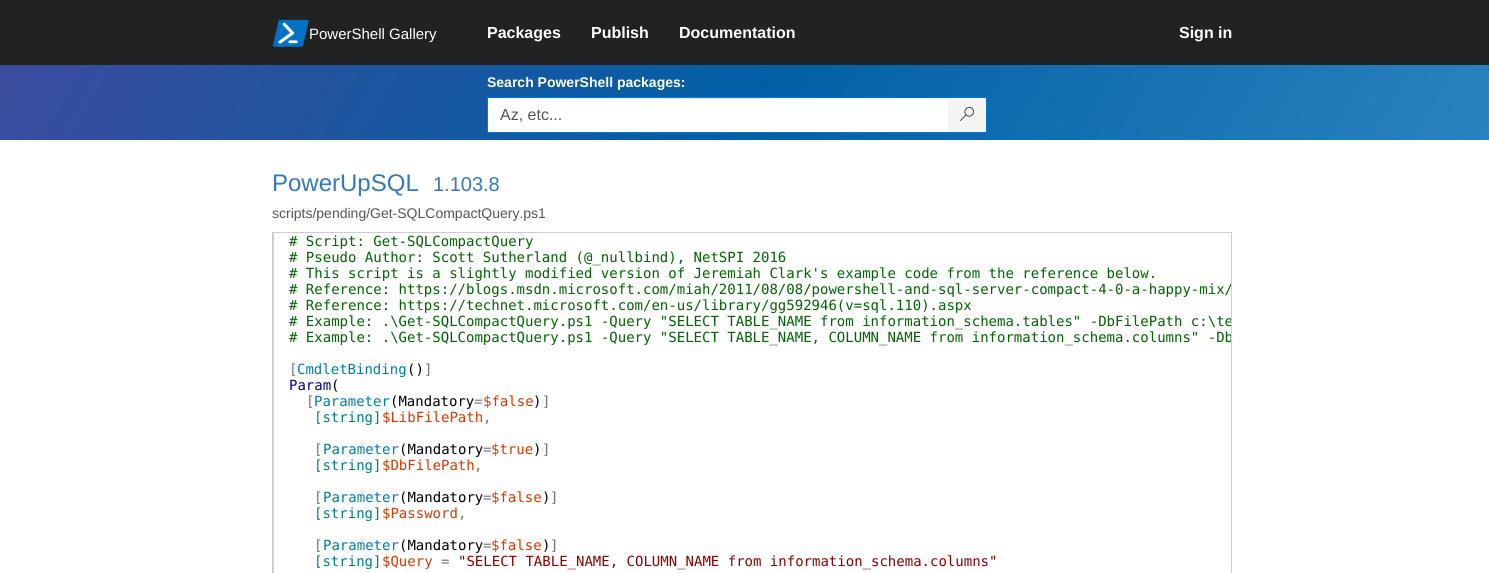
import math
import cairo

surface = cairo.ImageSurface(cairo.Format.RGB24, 1489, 573)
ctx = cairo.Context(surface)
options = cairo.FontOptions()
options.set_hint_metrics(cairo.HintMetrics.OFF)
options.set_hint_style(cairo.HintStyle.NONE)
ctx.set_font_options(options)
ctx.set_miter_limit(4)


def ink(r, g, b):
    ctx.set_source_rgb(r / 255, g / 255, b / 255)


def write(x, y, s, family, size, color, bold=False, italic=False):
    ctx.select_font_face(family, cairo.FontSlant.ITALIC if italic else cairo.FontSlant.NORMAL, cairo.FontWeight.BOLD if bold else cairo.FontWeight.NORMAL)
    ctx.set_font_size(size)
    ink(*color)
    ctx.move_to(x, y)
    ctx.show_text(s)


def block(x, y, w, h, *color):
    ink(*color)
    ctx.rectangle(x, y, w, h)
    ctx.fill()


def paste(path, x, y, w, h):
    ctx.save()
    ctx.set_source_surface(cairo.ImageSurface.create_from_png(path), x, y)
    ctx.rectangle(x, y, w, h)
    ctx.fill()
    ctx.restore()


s1 = dict(family="Liberation Sans", size=15, color=(255, 255, 255))
s2 = dict(family="Liberation Sans", size=16, color=(255, 255, 255), bold=True)
s3 = dict(family="Liberation Sans", size=14, color=(255, 255, 255), bold=True)
s4 = dict(family="Liberation Sans", size=16, color=(85, 85, 85))
s5 = dict(family="Liberation Sans", size=24, color=(51, 122, 183))
s6 = dict(family="Liberation Sans", size=20, color=(51, 122, 183))
s7 = dict(family="Liberation Sans", size=14, color=(85, 85, 85))
s8 = dict(family="DejaVu Sans Mono", size=14, color=(0, 100, 0))
s9 = dict(family="DejaVu Sans Mono", size=14, color=(115, 115, 115))
s10 = dict(family="DejaVu Sans Mono", size=14, color=(0, 123, 166))
s11 = dict(family="DejaVu Sans Mono", size=14, color=(0, 0, 0))
s12 = dict(family="DejaVu Sans Mono", size=14, color=(0, 0, 139))
s13 = dict(family="DejaVu Sans Mono", size=14, color=(217, 57, 0))
s14 = dict(family="DejaVu Sans Mono", size=14, color=(0, 128, 128))
s15 = dict(family="DejaVu Sans Mono", size=14, color=(139, 0, 0))

ink(255, 255, 255)
ctx.paint()
block(0, 0, 1489, 65, 34, 34, 34)
paste("pic1.png", 272, 19, 37, 28)
write(309, 39, "PowerShell Gallery", **s1)
write(487, 38, "Packages", **s2)
write(591, 38, "Publish", **s2)
write(679, 38, "Documentation", **s2)
write(1179, 38, "Sign in", **s2)
gradient = cairo.LinearGradient(170, -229, 1319, 434)
gradient.add_color_stop_rgba(0, 0.231, 0.298, 0.612, 1)
gradient.add_color_stop_rgba(0.5, 0.004, 0.373, 0.647, 1)
gradient.add_color_stop_rgba(1, 0.161, 0.514, 0.745, 1)
ctx.set_source(gradient)
ctx.rectangle(0, 65, 1489, 75)
ctx.fill()
write(487, 87, "Search PowerShell packages:", **s3)
block(488, 99, 460, 33, 255, 255, 255)
block(488, 98, 461, 1, 236, 236, 236)
block(487, 97, 500, 1, 0, 120, 215)
block(487, 132, 462, 1, 0, 120, 215)
block(487, 97, 1, 36, 0, 120, 215)
write(500, 120, "Az, etc...", **s4)
block(948, 98, 38, 34, 244, 244, 244)
block(986, 97, 1, 36, 0, 120, 215)
block(948, 132, 39, 1, 0, 120, 215)
paste("pic2.png", 960, 107, 14, 14)
write(272, 191, "PowerUpSQL", **s5)
write(433, 191, "1.103.8", **s6)
write(272, 218, "scripts/pending/Get-SQLCompactQuery.ps1", **s7)
ctx.rectangle(272.5, 232.5, 959, 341)
ink(206, 206, 206)
ctx.set_line_width(1)
ctx.stroke()
block(273, 233, 1, 340, 206, 206, 206)
write(289, 246, "# Script: Get-SQLCompactQuery", **s8)
write(289, 262, "# Pseudo Author: Scott Sutherland (@_nullbind), NetSPI 2016", **s8)
write(289, 278, "# This script is a slightly modified version of Jeremiah Clark's example code from the reference below.", **s8)
ctx.save()
ctx.rectangle(273, 233, 958, 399)
ctx.clip()
write(289, 294, "# Reference: https://blogs.msdn.microsoft.com/miah/2011/08/08/powershell-and-sql-server-compact-4-0-a-happy-mix/", **s8)
ctx.restore()
write(289, 310, "# Reference: https://technet.microsoft.com/en-us/library/gg592946(v=sql.110).aspx", **s8)
ctx.save()
ctx.rectangle(273, 233, 958, 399)
ctx.clip()
write(289, 326, "# Example: .\\Get-SQLCompactQuery.ps1 -Query \"SELECT TABLE_NAME from information_schema.tables\" -DbFilePath c:\\te", **s8)
write(289, 342, "# Example: .\\Get-SQLCompactQuery.ps1 -Query \"SELECT TABLE_NAME, COLUMN_NAME from information_schema.columns\" -Db", **s8)
ctx.restore()
write(289, 374, "[", **s9)
write(297, 374, "CmdletBinding", **s10)
write(407, 374, "()", **s11)
write(424, 374, "]", **s9)
write(289, 390, "Param", **s12)
write(331, 390, "(", **s11)
write(306, 406, "[", **s9)
write(314, 406, "Parameter", **s10)
write(390, 406, "(Mandatory", **s11)
write(474, 406, "=", **s9)
write(483, 406, "$false", **s13)
write(533, 406, ")", **s11)
write(542, 406, "]", **s9)
write(314, 422, "[string]", **s14)
write(382, 422, "$LibFilePath", **s13)
write(483, 422, ",", **s9)
write(314, 454, "[", **s9)
write(323, 454, "Parameter", **s10)
write(399, 454, "(Mandatory", **s11)
write(483, 454, "=", **s9)
write(491, 454, "$true", **s13)
write(533, 454, ")", **s11)
write(542, 454, "]", **s9)
write(314, 470, "[string]", **s14)
write(382, 470, "$DbFilePath", **s13)
write(474, 470, ",", **s9)
write(314, 502, "[", **s9)
write(323, 502, "Parameter", **s10)
write(399, 502, "(Mandatory", **s11)
write(483, 502, "=", **s9)
write(491, 502, "$false", **s13)
write(542, 502, ")", **s11)
write(550, 502, "]", **s9)
write(314, 518, "[string]", **s14)
write(382, 518, "$Password", **s13)
write(458, 518, ",", **s9)
write(314, 550, "[", **s9)
write(323, 550, "Parameter", **s10)
write(399, 550, "(Mandatory", **s11)
write(483, 550, "=", **s9)
write(491, 550, "$false", **s13)
write(542, 550, ")", **s11)
write(550, 550, "]", **s9)
write(314, 566, "[string]", **s14)
write(382, 566, "$Query", **s13)
write(441, 566, "=", **s9)
write(458, 566, "\"SELECT TABLE_NAME, COLUMN_NAME from information_schema.columns\"", **s15)
surface.write_to_png("screenshot.png")
